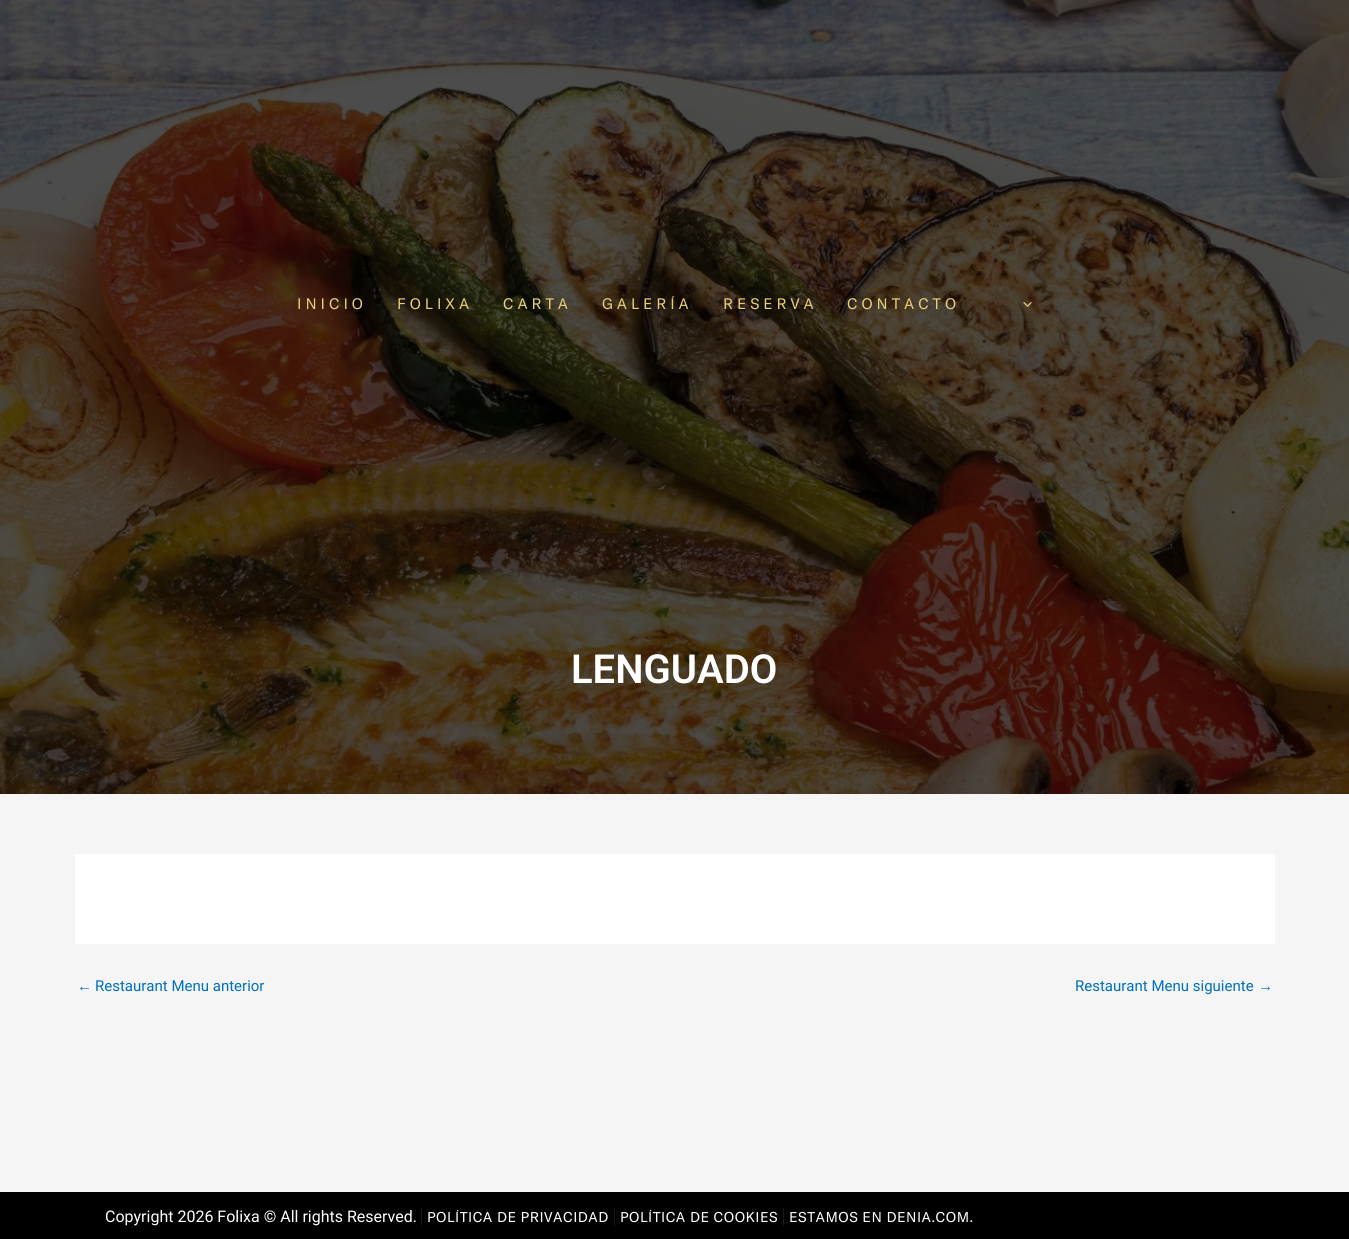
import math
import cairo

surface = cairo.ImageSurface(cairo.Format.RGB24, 1349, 1239)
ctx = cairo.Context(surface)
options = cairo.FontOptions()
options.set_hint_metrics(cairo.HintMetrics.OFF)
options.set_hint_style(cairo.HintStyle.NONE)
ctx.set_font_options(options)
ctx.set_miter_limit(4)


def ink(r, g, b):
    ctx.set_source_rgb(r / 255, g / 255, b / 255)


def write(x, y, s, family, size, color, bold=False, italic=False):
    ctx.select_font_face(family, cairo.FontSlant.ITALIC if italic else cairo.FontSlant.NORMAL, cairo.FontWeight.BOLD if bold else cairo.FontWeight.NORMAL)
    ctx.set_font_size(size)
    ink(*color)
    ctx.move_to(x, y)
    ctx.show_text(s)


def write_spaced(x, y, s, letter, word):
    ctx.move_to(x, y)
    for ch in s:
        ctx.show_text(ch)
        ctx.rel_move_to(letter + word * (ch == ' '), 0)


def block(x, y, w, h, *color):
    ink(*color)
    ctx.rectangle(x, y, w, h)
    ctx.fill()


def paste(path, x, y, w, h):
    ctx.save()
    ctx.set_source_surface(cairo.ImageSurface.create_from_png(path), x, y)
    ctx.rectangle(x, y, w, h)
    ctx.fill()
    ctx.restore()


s1 = dict(family="Roboto SemiBold", size=40, color=(255, 255, 255))
s2 = dict(family="Liberation Sans", size=15, color=(1, 112, 185))
s3 = dict(family="Roboto", size=15, color=(1, 112, 185))
s4 = dict(family="Roboto", size=16, color=(255, 255, 255))

ink(245, 245, 245)
ctx.paint()
paste("pic1.png", 0, 0, 1349, 794)
ctx.select_font_face("GT America")
ctx.set_font_size(15)
ink(231, 207, 122)
write_spaced(297, 309, "INICIO", 4, 0)
write_spaced(397, 309, "FOLIXA", 4, 0)
write_spaced(503, 309, "CARTA", 4, 0)
write_spaced(602, 309, "GALERÍA", 4, 0)
write_spaced(723, 309, "RESERVA", 4, 0)
write_spaced(847, 309, "CONTACTO", 4, 0)
paste("pic2.png", 1023, 302, 9, 5)
write(571, 683, "LENGUADO", **s1)
block(75, 854, 1200, 90, 255, 255, 255)
write(77, 991, "←", **s2)
write(95, 991, "Restaurant Menu anterior", **s3)
write(1075, 991, "Restaurant Menu siguiente", **s3)
write(1258, 991, "→", **s2)
block(0, 1192, 1349, 47, 0, 0, 0)
block(421, 1208, 1, 17, 26, 24, 24)
write(105, 1222, "Copyright 2026 Folixa © All rights Reserved.", **s4)
block(614, 1208, 1, 18, 26, 24, 24)
ctx.select_font_face("GT America")
ctx.set_font_size(14)
ink(255, 255, 255)
write_spaced(427, 1222, "POLÍTICA DE PRIVACIDAD", 0.5, 0)
block(783, 1208, 1, 18, 26, 24, 24)
ink(255, 255, 255)
write_spaced(620, 1222, "POLÍTICA DE COOKIES", 0.5, 0)
write_spaced(789, 1222, "ESTAMOS EN DENIA.COM.", 0.5, 0)
surface.write_to_png("screenshot.png")
